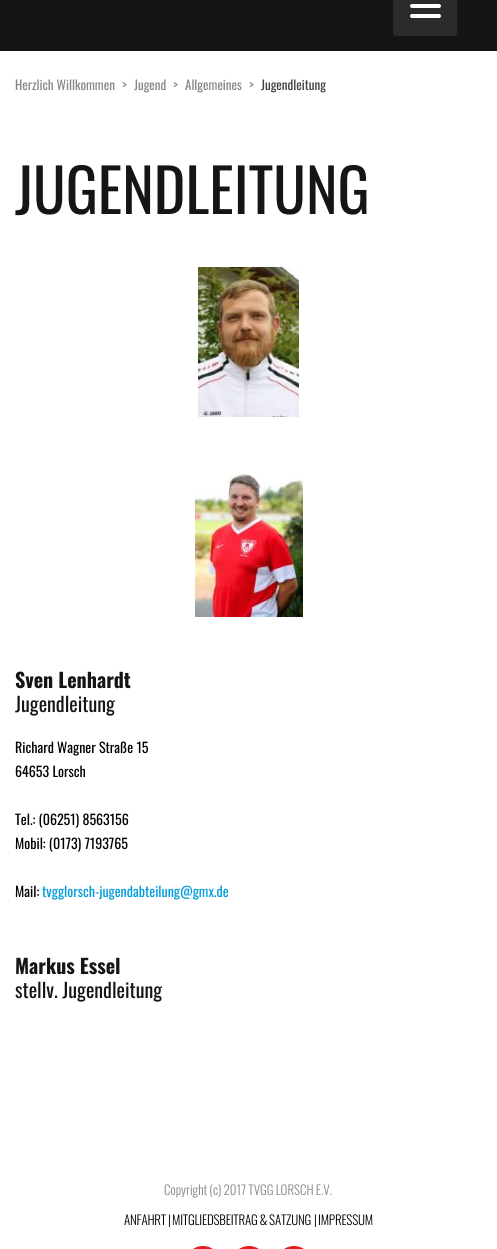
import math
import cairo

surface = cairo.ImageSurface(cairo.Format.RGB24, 497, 1249)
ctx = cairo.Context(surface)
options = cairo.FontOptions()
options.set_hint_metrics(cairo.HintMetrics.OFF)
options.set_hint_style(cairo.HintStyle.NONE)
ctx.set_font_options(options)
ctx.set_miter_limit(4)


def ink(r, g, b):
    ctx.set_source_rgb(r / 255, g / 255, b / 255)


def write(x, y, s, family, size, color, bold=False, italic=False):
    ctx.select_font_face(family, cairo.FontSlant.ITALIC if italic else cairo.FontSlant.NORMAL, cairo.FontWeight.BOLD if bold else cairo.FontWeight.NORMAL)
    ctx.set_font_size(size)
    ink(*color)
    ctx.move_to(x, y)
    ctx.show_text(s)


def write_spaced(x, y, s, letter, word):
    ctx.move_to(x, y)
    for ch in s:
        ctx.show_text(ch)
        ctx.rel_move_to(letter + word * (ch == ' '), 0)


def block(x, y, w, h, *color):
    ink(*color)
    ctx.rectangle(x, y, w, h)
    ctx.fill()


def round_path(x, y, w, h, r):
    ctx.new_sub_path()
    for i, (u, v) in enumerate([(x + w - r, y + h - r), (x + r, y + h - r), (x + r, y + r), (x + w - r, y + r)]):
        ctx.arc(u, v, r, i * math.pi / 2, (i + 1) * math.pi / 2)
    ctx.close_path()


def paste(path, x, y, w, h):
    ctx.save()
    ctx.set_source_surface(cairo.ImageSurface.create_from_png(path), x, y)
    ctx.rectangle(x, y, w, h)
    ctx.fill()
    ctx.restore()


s1 = dict(family="Oswald", size=13, color=(134, 134, 134))
s2 = dict(family="Oswald", size=13, color=(64, 64, 64))
s3 = dict(family="Oswald", size=60, color=(21, 21, 21))
s4 = dict(family="Oswald", size=20, color=(21, 21, 21), bold=True)
s5 = dict(family="Oswald", size=20, color=(21, 21, 21))
s6 = dict(family="Oswald", size=14, color=(0, 0, 0))
s7 = dict(family="Oswald", size=14, color=(0, 155, 220))

ink(255, 255, 255)
ctx.paint()
block(0, 0, 497, 51, 21, 21, 21)
ink(43, 43, 44)
round_path(393, -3, 64, 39, 3)
ctx.fill()
ink(255, 255, 255)
round_path(410, 4, 31, 4, 2)
ctx.fill()
round_path(410, 14, 31, 4, 2)
ctx.fill()
write(15, 90, "Herzlich Willkommen", **s1)
write(122, 90, ">", **s1)
write(134, 90, "Jugend", **s1)
write(173, 90, ">", **s1)
write(185, 90, "Allgemeines", **s1)
write(249, 90, ">", **s1)
write(261, 90, "Jugendleitung", **s2)
write(15, 214, "JUGENDLEITUNG", **s3)
paste("pic1.png", 198, 267, 101, 150)
paste("pic2.png", 195, 473, 108, 144)
write(15, 688, "Sven Lenhardt", **s4)
write(15, 712, "Jugendleitung", **s5)
write(15, 753, "Richard Wagner Straße 15", **s6)
write(15, 777, "64653 Lorsch", **s6)
write(15, 825, "Tel.: (06251) 8563156", **s6)
write(15, 849, "Mobil: (0173) 7193765", **s6)
write(15, 897, "Mail:", **s6)
write(42, 897, "tvgglorsch-jugendabteilung@gmx.de", **s7)
write(15, 974, "Markus Essel", **s4)
write(15, 998, "stellv. Jugendleitung", **s5)
ctx.select_font_face("Oswald Light")
ctx.set_font_size(13)
ink(134, 134, 134)
write_spaced(164, 1195, "Copyright (c) 2017 TVGG LORSCH E.V.", 0, -0.5)
ink(0, 0, 0)
write_spaced(124, 1225, "ANFAHRT", -0.2, 0)
write_spaced(168, 1225, "|", -0.2, 0)
write_spaced(172, 1225, "MITGLIEDSBEITRAG & SATZUNG", -0.2, -0.5)
write_spaced(314, 1225, "|", -0.2, 0)
write_spaced(318, 1225, "IMPRESSUM", -0.2, 0)
ink(226, 30, 34)
round_path(185, 1246, 36, 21, 18)
ctx.fill()
round_path(231, 1246, 36, 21, 18)
ctx.fill()
round_path(276, 1246, 36, 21, 18)
ctx.fill()
surface.write_to_png("screenshot.png")
